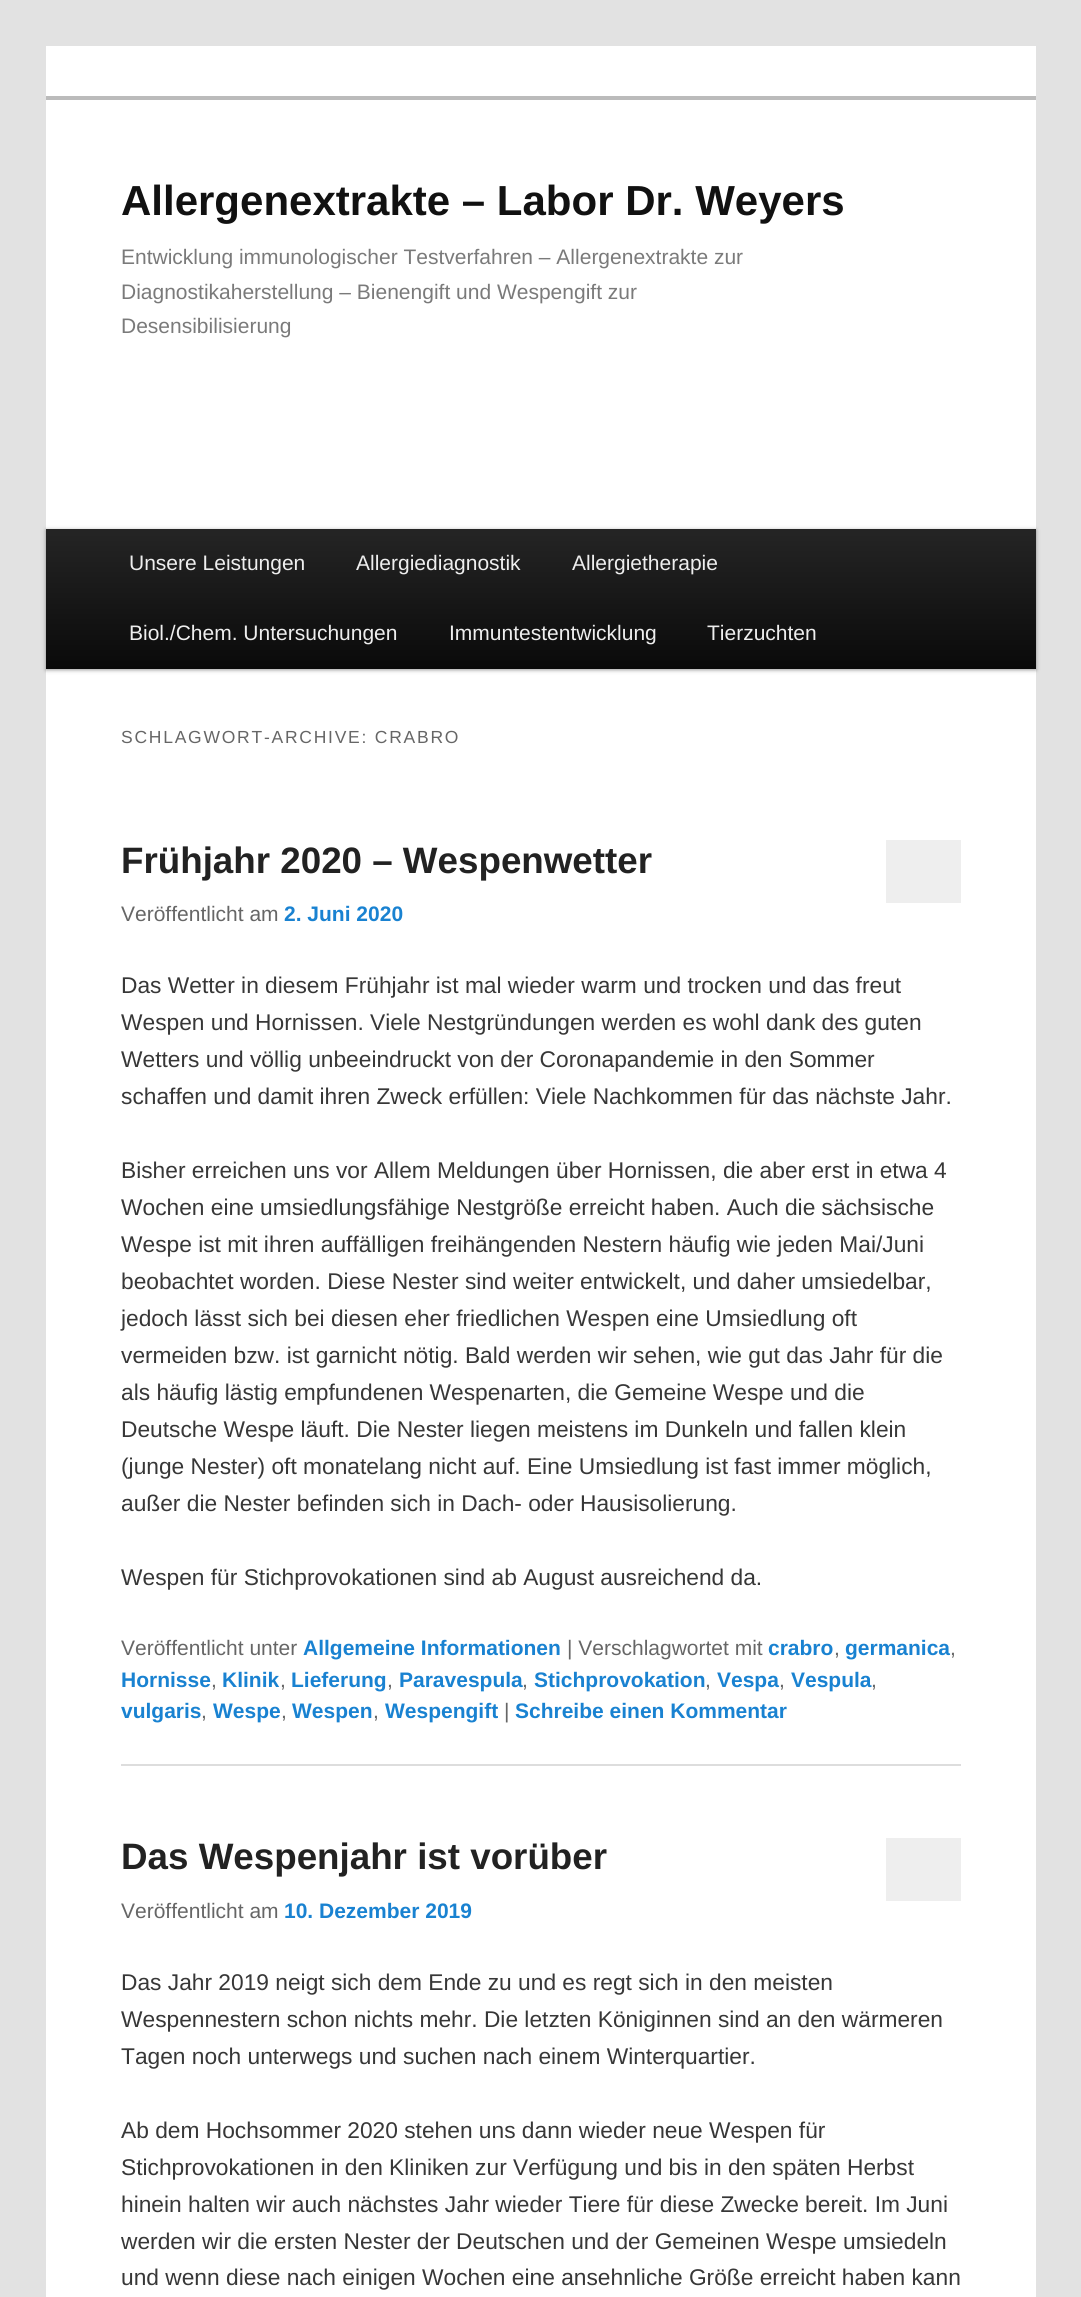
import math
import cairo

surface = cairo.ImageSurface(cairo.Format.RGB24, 1081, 2297)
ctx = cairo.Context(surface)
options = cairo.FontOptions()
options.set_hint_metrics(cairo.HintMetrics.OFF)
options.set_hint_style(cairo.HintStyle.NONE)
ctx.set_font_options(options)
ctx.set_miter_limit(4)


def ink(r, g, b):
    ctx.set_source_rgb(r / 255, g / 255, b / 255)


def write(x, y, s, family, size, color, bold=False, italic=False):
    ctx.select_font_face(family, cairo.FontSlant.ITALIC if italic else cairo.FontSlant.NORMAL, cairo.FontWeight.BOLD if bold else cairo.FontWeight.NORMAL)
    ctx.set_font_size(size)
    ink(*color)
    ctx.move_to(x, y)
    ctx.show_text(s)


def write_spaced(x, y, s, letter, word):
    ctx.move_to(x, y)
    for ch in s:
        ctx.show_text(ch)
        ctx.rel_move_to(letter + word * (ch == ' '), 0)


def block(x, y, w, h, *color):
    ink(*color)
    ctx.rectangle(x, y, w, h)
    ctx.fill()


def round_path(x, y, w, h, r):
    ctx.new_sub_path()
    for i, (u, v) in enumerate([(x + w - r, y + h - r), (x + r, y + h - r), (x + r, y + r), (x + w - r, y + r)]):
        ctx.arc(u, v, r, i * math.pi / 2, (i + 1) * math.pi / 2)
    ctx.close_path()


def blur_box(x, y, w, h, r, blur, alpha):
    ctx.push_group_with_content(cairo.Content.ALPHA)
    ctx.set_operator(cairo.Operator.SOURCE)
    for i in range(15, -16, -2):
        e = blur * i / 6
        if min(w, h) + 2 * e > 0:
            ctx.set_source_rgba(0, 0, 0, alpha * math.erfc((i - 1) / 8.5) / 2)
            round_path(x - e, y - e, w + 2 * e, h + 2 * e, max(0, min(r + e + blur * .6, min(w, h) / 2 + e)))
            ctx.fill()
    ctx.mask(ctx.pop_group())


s1 = dict(family="Liberation Sans", size=42, color=(17, 17, 17), bold=True)
s2 = dict(family="Liberation Sans", size=21, color=(122, 122, 122))
s3 = dict(family="Liberation Sans", size=21, color=(238, 238, 238))
s4 = dict(family="Liberation Sans", size=36.75, color=(34, 34, 34), bold=True)
s5 = dict(family="Liberation Sans", size=21, color=(102, 102, 102))
s6 = dict(family="Liberation Sans", size=21, color=(25, 130, 209), bold=True)
s7 = dict(family="Liberation Sans", size=22.75, color=(55, 55, 55))

ink(226, 226, 226)
ctx.paint()
block(46, 46, 990, 2251, 255, 255, 255)
block(46, 96, 990, 4, 187, 187, 187)
write(121, 215, "Allergenextrakte – Labor Dr. Weyers", **s1)
write(121, 264, "Entwicklung immunologischer Testverfahren – Allergenextrakte zur", **s2)
write(121, 299, "Diagnostikaherstellung – Bienengift und Wespengift zur", **s2)
write(121, 333, "Desensibilisierung", **s2)
ink(0, 0, 0)
blur_box(46, 530, 990, 140, 0, 2, 0.4)
gradient = cairo.LinearGradient(541, 528, 541, 669)
gradient.add_color_stop_rgba(0, 0.145, 0.145, 0.145, 1)
gradient.add_color_stop_rgba(1, 0.039, 0.039, 0.039, 1)
ctx.set_source(gradient)
ctx.rectangle(46, 529, 990, 140)
ctx.fill()
write(129, 570, "Unsere Leistungen", **s3)
write(356, 570, "Allergiediagnostik", **s3)
write(572, 570, "Allergietherapie", **s3)
write(129, 640, "Biol./Chem. Untersuchungen", **s3)
write(449, 640, "Immuntestentwicklung", **s3)
write(707, 640, "Tierzuchten", **s3)
ctx.set_font_size(17.5)
ink(102, 102, 102)
write_spaced(121, 743, "SCHLAGWORT-ARCHIVE: CRABRO", 1.75, 0)
block(121, 1764, 840, 2, 221, 221, 221)
write(121, 873, "Frühjahr 2020 – Wespenwetter", **s4)
block(886, 840, 75, 63, 238, 238, 238)
write(121, 921, "Veröffentlicht am", **s5)
write(284, 921, "2. Juni 2020", **s6)
write(121, 993, "Das Wetter in diesem Frühjahr ist mal wieder warm und trocken und das freut", **s7)
write(121, 1030, "Wespen und Hornissen. Viele Nestgründungen werden es wohl dank des guten", **s7)
write(121, 1067, "Wetters und völlig unbeeindruckt von der Coronapandemie in den Sommer", **s7)
write(121, 1104, "schaffen und damit ihren Zweck erfüllen: Viele Nachkommen für das nächste Jahr.", **s7)
write(121, 1178, "Bisher erreichen uns vor Allem Meldungen über Hornissen, die aber erst in etwa 4", **s7)
write(121, 1215, "Wochen eine umsiedlungsfähige Nestgröße erreicht haben. Auch die sächsische", **s7)
write(121, 1252, "Wespe ist mit ihren auffälligen freihängenden Nestern häufig wie jeden Mai/Juni", **s7)
write(121, 1289, "beobachtet worden. Diese Nester sind weiter entwickelt, und daher umsiedelbar,", **s7)
write(121, 1326, "jedoch lässt sich bei diesen eher friedlichen Wespen eine Umsiedlung oft", **s7)
write(121, 1363, "vermeiden bzw. ist garnicht nötig. Bald werden wir sehen, wie gut das Jahr für die", **s7)
write(121, 1400, "als häufig lästig empfundenen Wespenarten, die Gemeine Wespe und die", **s7)
write(121, 1437, "Deutsche Wespe läuft. Die Nester liegen meistens im Dunkeln und fallen klein", **s7)
write(121, 1474, "(junge Nester) oft monatelang nicht auf. Eine Umsiedlung ist fast immer möglich,", **s7)
write(121, 1511, "außer die Nester befinden sich in Dach- oder Hausisolierung.", **s7)
write(121, 1585, "Wespen für Stichprovokationen sind ab August ausreichend da.", **s7)
write(121, 1655, "Veröffentlicht unter", **s5)
write(303, 1655, "Allgemeine Informationen", **s6)
write(567, 1655, "| Verschlagwortet mit", **s5)
write(768, 1655, "crabro", **s6)
write(834, 1655, ",", **s5)
write(845, 1655, "germanica", **s6)
write(950, 1655, ",", **s5)
write(121, 1687, "Hornisse", **s6)
write(211, 1687, ",", **s5)
write(222, 1687, "Klinik", **s6)
write(280, 1687, ",", **s5)
write(291, 1687, "Lieferung", **s6)
write(387, 1687, ",", **s5)
write(399, 1687, "Paravespula", **s6)
write(522, 1687, ",", **s5)
write(534, 1687, "Stichprovokation", **s6)
write(705, 1687, ",", **s5)
write(717, 1687, "Vespa", **s6)
write(779, 1687, ",", **s5)
write(791, 1687, "Vespula", **s6)
write(871, 1687, ",", **s5)
write(121, 1718, "vulgaris", **s6)
write(201, 1718, ",", **s5)
write(213, 1718, "Wespe", **s6)
write(281, 1718, ",", **s5)
write(292, 1718, "Wespen", **s6)
write(373, 1718, ",", **s5)
write(385, 1718, "Wespengift", **s6)
write(504, 1718, "|", **s5)
write(515, 1718, "Schreibe einen Kommentar", **s6)
write(121, 1869, "Das Wespenjahr ist vorüber", **s4)
block(886, 1838, 75, 63, 238, 238, 238)
write(121, 1918, "Veröffentlicht am", **s5)
write(284, 1918, "10. Dezember 2019", **s6)
write(121, 1990, "Das Jahr 2019 neigt sich dem Ende zu und es regt sich in den meisten", **s7)
write(121, 2027, "Wespennestern schon nichts mehr. Die letzten Königinnen sind an den wärmeren", **s7)
write(121, 2064, "Tagen noch unterwegs und suchen nach einem Winterquartier.", **s7)
write(121, 2138, "Ab dem Hochsommer 2020 stehen uns dann wieder neue Wespen für", **s7)
write(121, 2175, "Stichprovokationen in den Kliniken zur Verfügung und bis in den späten Herbst", **s7)
write(121, 2212, "hinein halten wir auch nächstes Jahr wieder Tiere für diese Zwecke bereit. Im Juni", **s7)
write(121, 2249, "werden wir die ersten Nester der Deutschen und der Gemeinen Wespe umsiedeln", **s7)
write(121, 2285, "und wenn diese nach einigen Wochen eine ansehnliche Größe erreicht haben kann", **s7)
surface.write_to_png("screenshot.png")
